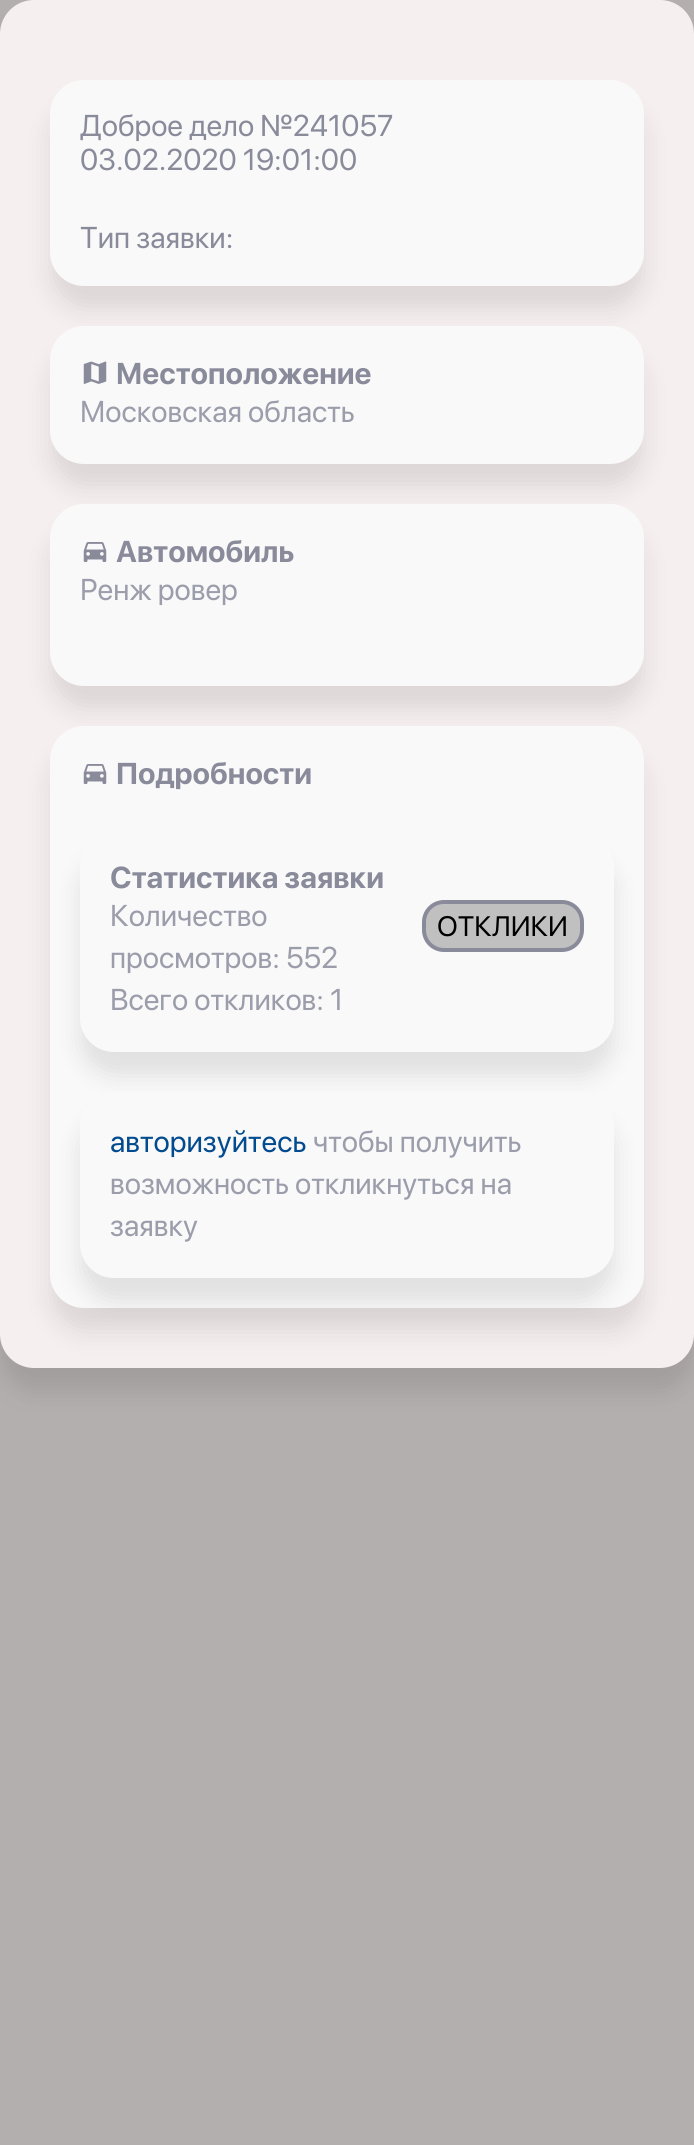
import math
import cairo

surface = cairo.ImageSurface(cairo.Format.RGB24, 694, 2145)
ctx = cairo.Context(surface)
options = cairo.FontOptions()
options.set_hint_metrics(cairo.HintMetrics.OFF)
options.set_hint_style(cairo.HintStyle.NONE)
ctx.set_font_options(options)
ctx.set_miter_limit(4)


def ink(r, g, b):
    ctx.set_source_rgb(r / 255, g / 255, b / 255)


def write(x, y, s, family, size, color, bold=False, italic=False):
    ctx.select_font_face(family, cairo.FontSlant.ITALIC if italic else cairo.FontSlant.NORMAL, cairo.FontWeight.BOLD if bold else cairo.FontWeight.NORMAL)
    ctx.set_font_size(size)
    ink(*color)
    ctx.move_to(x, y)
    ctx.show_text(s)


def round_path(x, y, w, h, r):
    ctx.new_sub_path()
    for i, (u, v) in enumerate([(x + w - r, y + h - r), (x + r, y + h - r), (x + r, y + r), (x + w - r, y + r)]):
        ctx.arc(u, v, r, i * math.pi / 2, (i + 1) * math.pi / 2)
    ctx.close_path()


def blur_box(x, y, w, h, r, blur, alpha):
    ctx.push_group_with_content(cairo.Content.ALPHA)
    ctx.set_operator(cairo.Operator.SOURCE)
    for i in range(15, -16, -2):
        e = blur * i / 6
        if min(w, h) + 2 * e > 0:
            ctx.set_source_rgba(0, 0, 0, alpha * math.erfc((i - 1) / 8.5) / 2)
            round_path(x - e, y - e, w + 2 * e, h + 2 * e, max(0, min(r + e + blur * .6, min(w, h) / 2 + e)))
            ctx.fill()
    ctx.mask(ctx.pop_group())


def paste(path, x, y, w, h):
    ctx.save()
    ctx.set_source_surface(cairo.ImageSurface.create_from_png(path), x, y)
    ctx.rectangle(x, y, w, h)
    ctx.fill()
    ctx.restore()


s1 = dict(family="SF Pro Display", size=30, color=(137, 139, 155))
s2 = dict(family="SF Pro Display", size=30, color=(137, 139, 155), bold=True)
s3 = dict(family="SF Pro Display", size=30, color=(155, 157, 171))
s4 = dict(family="SF Pro Display", size=28, color=(0, 0, 0))
s5 = dict(family="SF Pro Display", size=30, color=(3, 75, 143))

ink(180, 175, 175)
ctx.paint()
ink(0, 0, 0)
blur_box(0, 24, 694, 1368, 34, 12, 0.1)
ink(246, 239, 239)
round_path(0, 0, 694, 1368, 34)
ctx.fill()
ink(0, 0, 0)
blur_box(50, 104, 594, 206, 34, 12, 0.1)
ink(249, 249, 249)
round_path(50, 80, 594, 206, 34)
ctx.fill()
write(80, 136, "Доброе дело №241057", **s1)
write(80, 170, "03.02.2020 19:01:00", **s1)
write(80, 248, "Тип заявки:", **s1)
ink(0, 0, 0)
blur_box(50, 350, 594, 138, 34, 12, 0.1)
ink(249, 249, 249)
round_path(50, 326, 594, 138, 34)
ctx.fill()
paste("pic1.png", 83, 361, 24, 23)
write(116, 384, "Местоположение", **s2)
write(80, 422, "Московская область", **s3)
ink(0, 0, 0)
blur_box(50, 528, 594, 182, 34, 12, 0.1)
ink(249, 249, 249)
round_path(50, 504, 594, 182, 34)
ctx.fill()
paste("pic2.png", 83, 542, 24, 20)
write(116, 562, "Автомобиль", **s2)
write(80, 600, "Ренж ровер", **s3)
ink(0, 0, 0)
blur_box(50, 750, 594, 582, 34, 12, 0.1)
ink(249, 249, 249)
round_path(50, 726, 594, 582, 34)
ctx.fill()
paste("pic2.png", 83, 764, 24, 20)
write(116, 784, "Подробности", **s2)
ink(0, 0, 0)
blur_box(80, 856, 534, 220, 34, 12, 0.1)
ink(249, 249, 249)
round_path(80, 832, 534, 220, 34)
ctx.fill()
write(110, 888, "Статистика заявки", **s2)
write(110, 926, "Количество", **s3)
write(110, 968, "просмотров: 552", **s3)
ink(192, 192, 192)
round_path(424, 902, 158, 48, 20)
ctx.fill_preserve()
ink(137, 139, 155)
ctx.set_line_width(4)
ctx.stroke()
write(437, 936, "ОТКЛИКИ", **s4)
write(110, 1010, "Всего откликов: 1", **s3)
ink(0, 0, 0)
blur_box(80, 1116, 534, 186, 34, 12, 0.1)
ink(249, 249, 249)
round_path(80, 1092, 534, 186, 34)
ctx.fill()
write(110, 1152, "авторизуйтесь", **s5)
write(313, 1152, "чтобы получить", **s3)
write(110, 1194, "возможность откликнуться на", **s3)
write(110, 1236, "заявку", **s3)
surface.write_to_png("screenshot.png")
